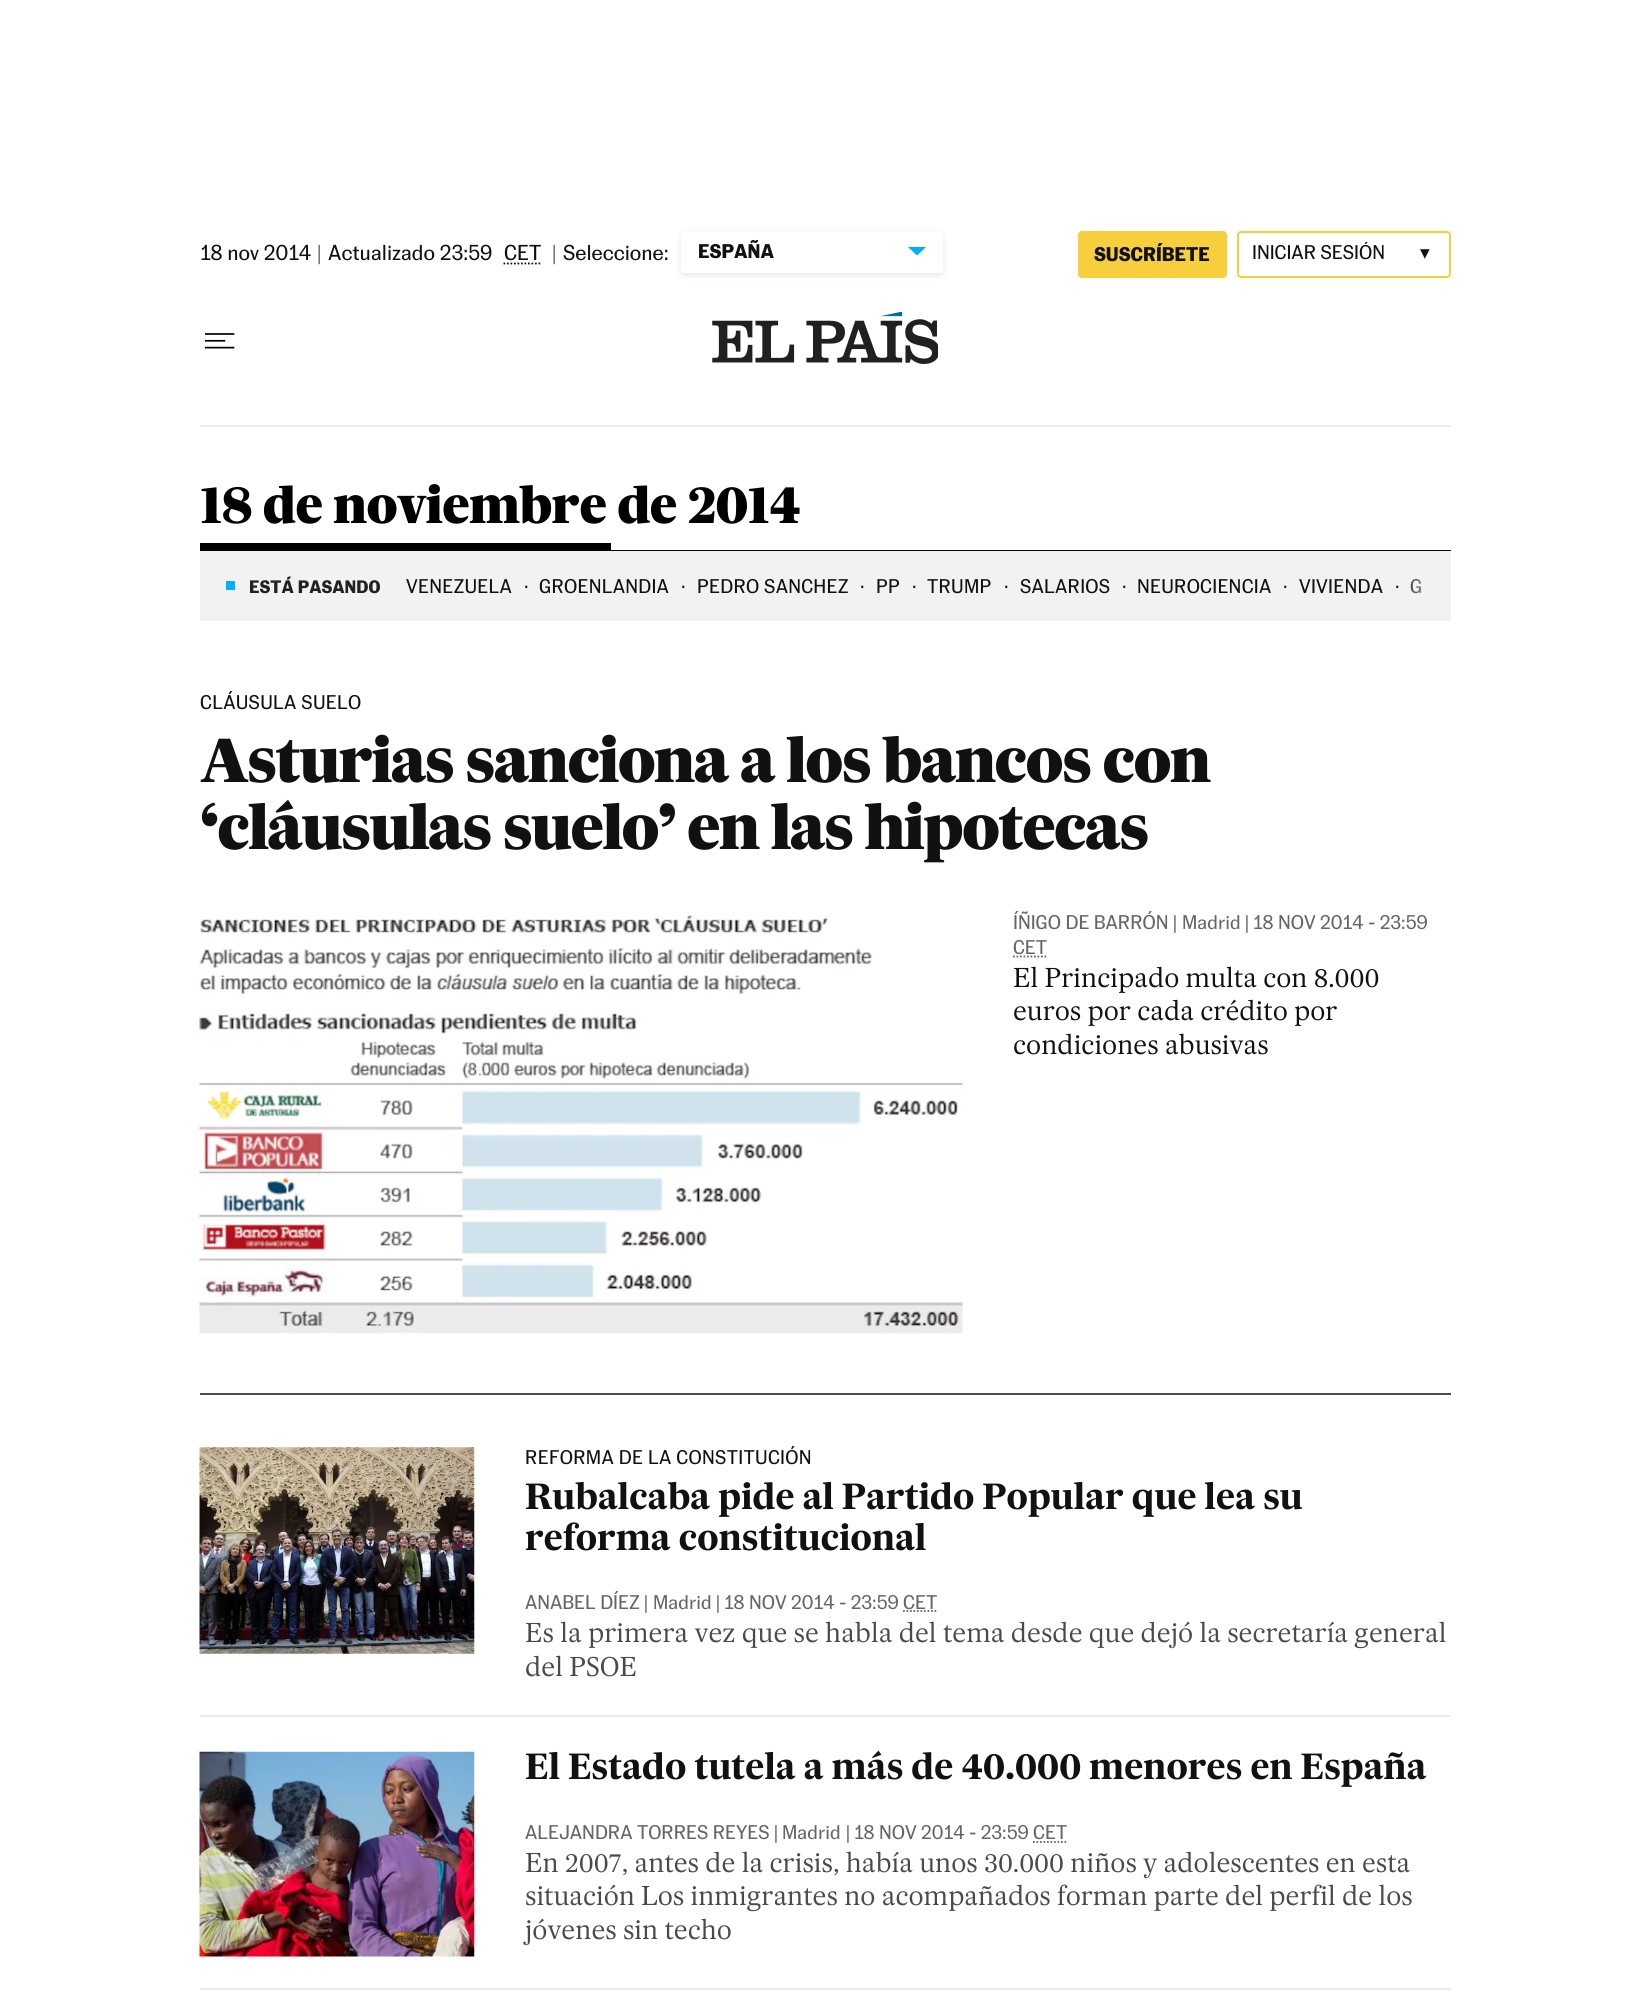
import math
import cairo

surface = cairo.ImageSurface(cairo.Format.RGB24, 1650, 2010)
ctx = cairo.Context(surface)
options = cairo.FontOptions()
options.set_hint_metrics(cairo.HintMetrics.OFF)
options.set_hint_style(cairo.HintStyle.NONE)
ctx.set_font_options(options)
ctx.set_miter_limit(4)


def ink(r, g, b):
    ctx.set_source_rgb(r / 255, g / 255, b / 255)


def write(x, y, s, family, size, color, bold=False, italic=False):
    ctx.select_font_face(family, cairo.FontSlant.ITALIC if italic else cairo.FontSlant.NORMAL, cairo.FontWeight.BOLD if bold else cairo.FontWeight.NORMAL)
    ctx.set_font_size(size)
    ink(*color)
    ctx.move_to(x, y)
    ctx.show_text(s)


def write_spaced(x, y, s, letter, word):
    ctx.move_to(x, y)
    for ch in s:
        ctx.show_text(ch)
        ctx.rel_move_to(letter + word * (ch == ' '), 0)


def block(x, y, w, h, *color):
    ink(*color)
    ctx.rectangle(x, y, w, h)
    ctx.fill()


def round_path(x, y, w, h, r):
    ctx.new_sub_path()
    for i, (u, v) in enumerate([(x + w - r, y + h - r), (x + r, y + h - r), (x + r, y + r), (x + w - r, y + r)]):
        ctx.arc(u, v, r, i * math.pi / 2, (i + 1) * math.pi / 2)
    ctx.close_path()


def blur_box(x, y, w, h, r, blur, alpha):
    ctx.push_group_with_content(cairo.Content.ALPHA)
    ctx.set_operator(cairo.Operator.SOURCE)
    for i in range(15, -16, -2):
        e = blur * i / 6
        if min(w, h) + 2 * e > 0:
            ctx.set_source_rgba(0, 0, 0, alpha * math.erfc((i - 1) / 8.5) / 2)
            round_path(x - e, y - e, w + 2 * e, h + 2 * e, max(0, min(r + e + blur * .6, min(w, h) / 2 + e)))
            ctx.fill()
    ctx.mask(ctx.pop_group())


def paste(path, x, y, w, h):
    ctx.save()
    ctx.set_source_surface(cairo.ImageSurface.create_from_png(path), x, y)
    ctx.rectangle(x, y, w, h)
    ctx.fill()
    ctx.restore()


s1 = dict(family="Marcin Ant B", size=21, color=(17, 17, 17))
s2 = dict(family="Marcin Ant B", size=21, color=(117, 117, 117))
s3 = dict(family="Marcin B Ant", size=19.25, color=(17, 17, 17), bold=True)
s4 = dict(family="Marcin Ant B", size=19.25, color=(17, 17, 17))
s5 = dict(family="DejaVu Sans", size=19.25, color=(17, 17, 17))
s6 = dict(family="Marcin B Ant", size=17.5, color=(34, 34, 34), bold=True)
s7 = dict(family="Marcin Ant B", size=19.25, color=(102, 102, 102))
s8 = dict(family="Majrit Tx", size=26.25, color=(17, 17, 17))
s9 = dict(family="Majrit Tx", size=26.25, color=(74, 74, 74))

ink(255, 255, 255)
ctx.paint()
write(200, 260, "18 nov 2014", **s1)
write(316, 260, "|", **s2)
write(328, 260, "Actualizado 23:59", **s1)
write(504, 260, "CET", **s1)
ctx.new_path()
ctx.move_to(503.5, 263.5)
ctx.line_to(541, 263.5)
ctx.set_line_width(1.8)
ctx.set_dash([1.75, 1.75])
ctx.stroke()
write(551, 260, "|", **s2)
write(563, 260, "Seleccione:", **s1)
ctx.save()
ctx.set_fill_rule(cairo.FillRule.EVEN_ODD)
ctx.new_path()
ctx.move_to(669, 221)
ctx.line_to(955, 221)
ctx.line_to(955, 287)
ctx.line_to(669, 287)
ctx.close_path()
ctx.move_to(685, 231)
ctx.line_to(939, 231)
ctx.curve_to(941, 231, 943, 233, 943, 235)
ctx.line_to(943, 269)
ctx.curve_to(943, 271, 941, 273, 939, 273)
ctx.line_to(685, 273)
ctx.curve_to(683, 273, 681, 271, 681, 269)
ctx.line_to(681, 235)
ctx.curve_to(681, 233, 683, 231, 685, 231)
ctx.close_path()
ctx.clip()
ink(0, 0, 0)
blur_box(681, 233, 262, 42, 4, 3.5, 0.1)
ctx.restore()
write(698, 258, "ESPAÑA", **s3)
ink(0, 174, 255)
ctx.new_path()
ctx.move_to(908, 247)
ctx.line_to(926, 247)
ctx.line_to(917, 255.5)
ctx.close_path()
ctx.fill()
ink(247, 207, 60)
round_path(1078, 231, 149, 47, 4)
ctx.fill()
write(1094, 261, "SUSCRÍBETE", **s3)
round_path(1238, 232, 212, 45, 3)
ink(247, 207, 60)
ctx.set_line_width(2)
ctx.set_dash([])
ctx.stroke()
ctx.save()
ctx.rectangle(1253, 242, 131, 26)
ctx.clip()
write(1252, 259, "INICIAR SESIÓN", **s4)
ctx.restore()
write(1420, 259, "▾", **s5)
paste("pic1.png", 205, 333, 30, 16)
paste("pic2.png", 712, 312, 226, 52)
block(200, 425, 1251, 2, 239, 239, 239)
block(200, 550, 1251, 1, 0, 0, 0)
ctx.select_font_face("Majrit Tx Black")
ctx.set_font_size(49)
write_spaced(200, 523, "18 de noviembre de 2014", -1.05, 0)
block(200, 543, 411, 7, 0, 0, 0)
block(200, 551, 1251, 70, 242, 242, 242)
block(226, 581, 9, 9, 0, 177, 255)
write(249, 593, "ESTÁ PASANDO", **s6)
ctx.select_font_face("Marcin Ant B")
ctx.set_font_size(19.25)
ink(17, 17, 17)
write_spaced(406, 593, "VENEZUELA", 0.25, 0)
gradient = cairo.LinearGradient(380, 591, 408, 591)
gradient.add_color_stop_rgba(0, 0.949, 0.949, 0.949, 1)
gradient.add_color_stop_rgba(1, 0.949, 0.949, 0.949, 0)
ctx.set_source(gradient)
ctx.rectangle(406, 579, 1, 1)
ctx.fill()
ink(17, 17, 17)
write_spaced(524, 588, ".", 0.25, 0)
write_spaced(539, 593, "GROENLANDIA", 0.25, 0)
write_spaced(681, 588, ".", 0.25, 0)
write_spaced(697, 593, "PEDRO SANCHEZ", 0.25, 0)
write_spaced(860, 588, ".", 0.25, 0)
write_spaced(876, 593, "PP", 0.25, 0)
write_spaced(912, 588, ".", 0.25, 0)
write_spaced(927, 593, "TRUMP", 0.25, 0)
write_spaced(1004, 588, ".", 0.25, 0)
write_spaced(1020, 593, "SALARIOS", 0.25, 0)
write_spaced(1122, 588, ".", 0.25, 0)
write_spaced(1137, 593, "NEUROCIENCIA", 0.25, 0)
write_spaced(1283, 588, ".", 0.25, 0)
write_spaced(1299, 593, "VIVIENDA", 0.25, 0)
write_spaced(1395, 588, ".", 0.25, 0)
write_spaced(1410, 593, "G", 0.25, 0)
gradient = cairo.LinearGradient(1395, 591, 1451, 591)
gradient.add_color_stop_rgba(0, 0.949, 0.949, 0.949, 0)
gradient.add_color_stop_rgba(1, 0.949, 0.949, 0.949, 1)
ctx.set_source(gradient)
ctx.rectangle(1396, 578, 26, 16)
ctx.fill()
block(200, 1393, 1251, 2, 74, 74, 74)
ink(17, 17, 17)
write_spaced(200, 709, "CLÁUSULA SUELO", 0.3, 0)
ctx.select_font_face("Majrit Tx Black")
ctx.set_font_size(59.5)
write_spaced(200, 782, "Asturias sanciona a los bancos con", -2.15, 0)
write_spaced(200, 849, "‘cláusulas suelo’ en las hipotecas", -2.15, 0)
paste("pic3.png", 199, 915, 764, 419)
write(1013, 929, "ÍÑIGO DE BARRÓN", **s7)
write(1172, 929, "|", **s7)
write(1182, 929, "Madrid", **s7)
write(1244, 929, "|", **s7)
write(1253, 929, "18 NOV 2014 - 23:59", **s7)
write(1013, 954, "CET", **s7)
ctx.new_path()
ctx.move_to(1013, 956.5)
ctx.line_to(1047.5, 956.5)
ctx.set_line_width(1.8)
ctx.set_dash([1.75, 1.75])
ctx.stroke()
write(1013, 987, "El Principado multa con 8.000", **s8)
write(1013, 1020, "euros por cada crédito por", **s8)
write(1013, 1054, "condiciones abusivas", **s8)
block(200, 1715, 1251, 2, 235, 235, 235)
paste("pic4.png", 199, 1447, 276, 207)
ctx.select_font_face("Marcin Ant B")
ctx.set_font_size(19.25)
ink(17, 17, 17)
write_spaced(525, 1464, "REFORMA DE LA CONSTITUCIÓN", 0.3, 0)
ctx.select_font_face("Majrit Tx", cairo.FontSlant.NORMAL, cairo.FontWeight.BOLD)
ctx.set_font_size(35)
write_spaced(525, 1509, "Rubalcaba pide al Partido Popular que lea su", -0.35, 0)
write_spaced(525, 1550, "reforma constitucional", -0.35, 0)
write(525, 1609, "ANABEL DÍEZ", **s7)
write(643, 1609, "|", **s7)
write(653, 1609, "Madrid", **s7)
write(715, 1609, "|", **s7)
write(724, 1609, "18 NOV 2014 - 23:59 CET", **s7)
ctx.new_path()
ctx.move_to(903, 1611)
ctx.line_to(937.5, 1611)
ctx.stroke()
write(525, 1642, "Es la primera vez que se habla del tema desde que dejó la secretaría general", **s9)
write(525, 1676, "del PSOE", **s9)
block(200, 1988, 1251, 2, 235, 235, 235)
paste("pic5.png", 199, 1751, 276, 206)
ctx.select_font_face("Majrit Tx", cairo.FontSlant.NORMAL, cairo.FontWeight.BOLD)
ctx.set_font_size(35)
ink(17, 17, 17)
write_spaced(525, 1779, "El Estado tutela a más de 40.000 menores en España", -0.35, 0)
write(525, 1839, "ALEJANDRA TORRES REYES", **s7)
write(773, 1839, "|", **s7)
write(782, 1839, "Madrid", **s7)
write(845, 1839, "|", **s7)
write(854, 1839, "18 NOV 2014 - 23:59 CET", **s7)
ctx.new_path()
ctx.move_to(1033, 1842)
ctx.line_to(1067, 1842)
ctx.stroke()
write(525, 1872, "En 2007, antes de la crisis, había unos 30.000 niños y adolescentes en esta", **s9)
write(525, 1905, "situación Los inmigrantes no acompañados forman parte del perfil de los", **s9)
write(525, 1939, "jóvenes sin techo", **s9)
surface.write_to_png("screenshot.png")
